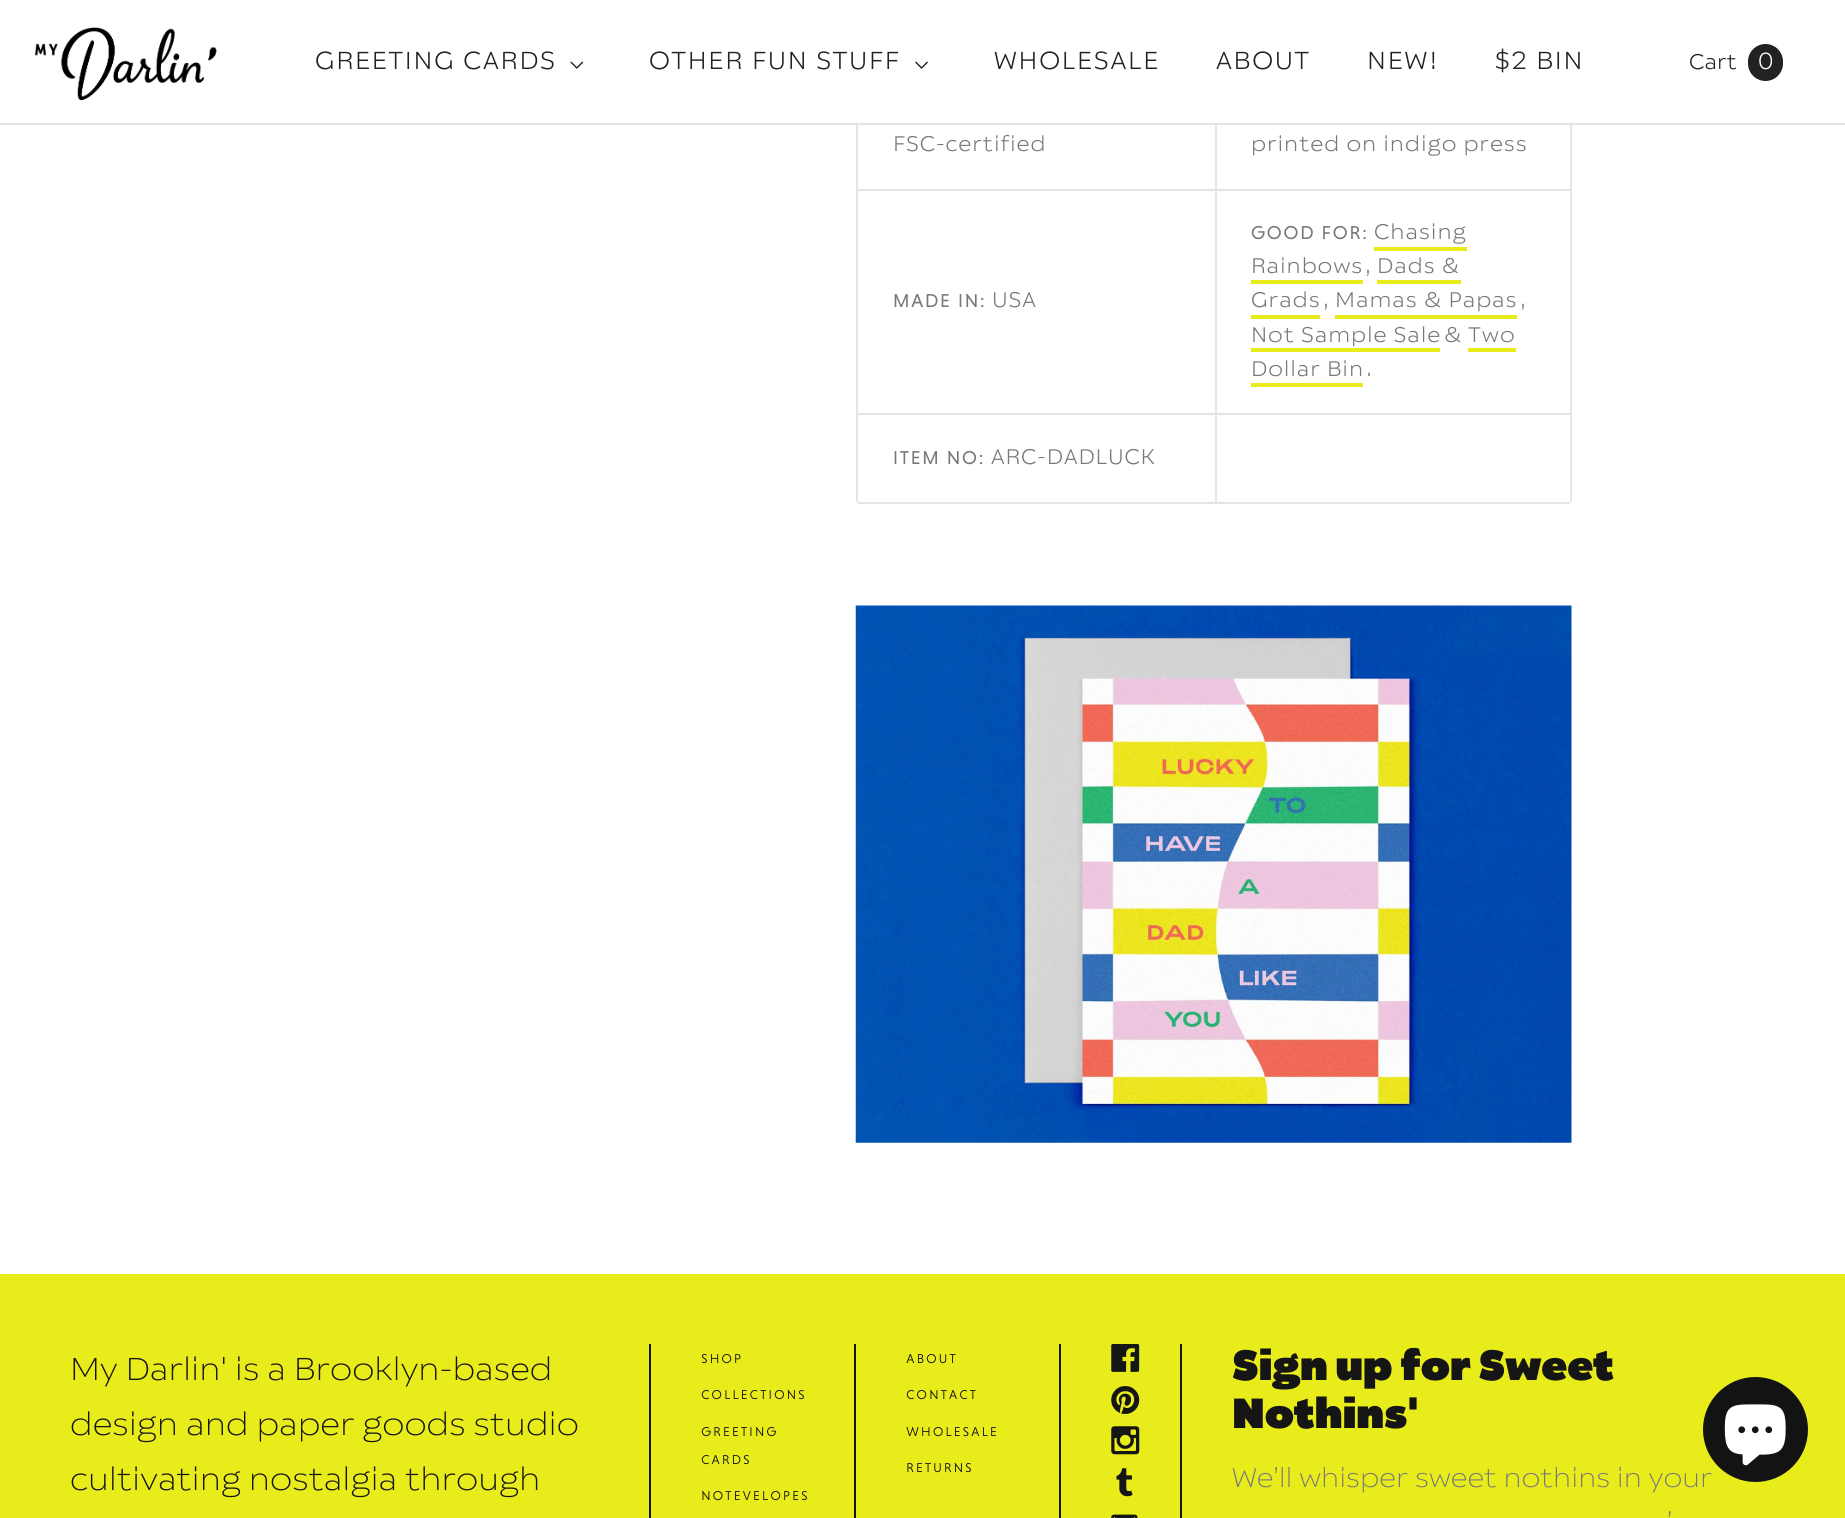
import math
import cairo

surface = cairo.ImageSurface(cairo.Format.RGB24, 1845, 1518)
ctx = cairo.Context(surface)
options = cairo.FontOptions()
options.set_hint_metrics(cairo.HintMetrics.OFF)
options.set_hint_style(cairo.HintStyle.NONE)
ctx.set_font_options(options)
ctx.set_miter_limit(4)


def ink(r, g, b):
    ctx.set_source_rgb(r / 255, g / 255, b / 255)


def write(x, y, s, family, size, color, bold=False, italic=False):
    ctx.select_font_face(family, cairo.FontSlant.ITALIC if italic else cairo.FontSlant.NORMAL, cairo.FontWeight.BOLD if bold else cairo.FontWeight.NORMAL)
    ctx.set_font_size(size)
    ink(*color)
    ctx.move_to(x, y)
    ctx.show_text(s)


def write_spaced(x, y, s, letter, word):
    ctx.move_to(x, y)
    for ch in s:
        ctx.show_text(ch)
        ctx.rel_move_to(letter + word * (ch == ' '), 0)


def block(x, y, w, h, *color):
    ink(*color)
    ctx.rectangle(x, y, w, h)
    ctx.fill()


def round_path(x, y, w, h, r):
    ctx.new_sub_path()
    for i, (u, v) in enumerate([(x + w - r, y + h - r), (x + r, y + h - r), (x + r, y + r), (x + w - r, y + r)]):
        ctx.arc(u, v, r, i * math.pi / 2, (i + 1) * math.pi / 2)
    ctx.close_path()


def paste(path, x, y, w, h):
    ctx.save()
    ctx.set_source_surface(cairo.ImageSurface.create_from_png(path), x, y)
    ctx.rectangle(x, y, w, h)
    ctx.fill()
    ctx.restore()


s1 = dict(family="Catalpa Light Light", size=21, color=(34, 34, 34))
s2 = dict(family="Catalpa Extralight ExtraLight", size=31.5, color=(21, 21, 21))
s3 = dict(family="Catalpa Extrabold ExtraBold", size=42, color=(21, 21, 21))
s4 = dict(family="Catalpa Extralight ExtraLight", size=26.75, color=(120, 120, 120))

ink(255, 255, 255)
ctx.paint()
block(0, 123, 1845, 2, 229, 228, 228)
paste("pic1.png", 34, 27, 183, 74)
ctx.select_font_face("Catalpa Light Light")
ctx.set_font_size(24.5)
ink(34, 34, 34)
write_spaced(315, 69, "GREETING CARDS", 1.75, 0)
paste("pic2.png", 570, 61, 14, 8)
write_spaced(649, 69, "OTHER FUN STUFF", 1.75, 0)
paste("pic3.png", 915, 61, 13, 8)
write_spaced(994, 69, "WHOLESALE", 1.75, 0)
write_spaced(1216, 69, "ABOUT", 1.75, 0)
write_spaced(1367, 69, "NEW!", 1.75, 0)
write_spaced(1495, 69, "$2 BIN", 1.75, 0)
write(1689, 69, "Cart", **s1)
round_path(1748, 44, 35, 37, 17.5)
ctx.fill()
ctx.set_font_size(23)
ink(255, 255, 255)
write_spaced(1758, 69, "0", 1.75, 0)
block(1570, 125, 2, 377, 229, 228, 228)
block(858, 502, 712, 2, 229, 228, 228)
block(856, 125, 2, 377, 229, 228, 228)
ctx.set_font_size(21)
ink(120, 120, 120)
write_spaced(893, 151, "FSC-certified", 0.9, 0)
block(1215, 125, 2, 64, 229, 228, 228)
ink(120, 120, 120)
write_spaced(1251, 151, "printed on indigo press", 0.9, 0)
block(858, 189, 712, 2, 229, 228, 228)
ctx.select_font_face("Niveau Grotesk")
ctx.set_font_size(19)
ink(120, 120, 120)
write_spaced(893, 307, "MADE IN:", 1.75, 0)
ctx.select_font_face("Catalpa Light Light")
ctx.set_font_size(21)
write_spaced(992, 307, "USA", 0.9, 0)
block(1215, 189, 2, 224, 229, 228, 228)
ctx.select_font_face("Niveau Grotesk")
ctx.set_font_size(19)
ink(120, 120, 120)
write_spaced(1251, 239, "GOOD FOR:", 1.75, 0)
ctx.select_font_face("Catalpa Light Light")
ctx.set_font_size(21)
write_spaced(1374, 239, "Chasing", 0.9, 0)
block(1374, 247, 93, 4, 233, 236, 27)
ink(120, 120, 120)
write_spaced(1251, 273, "Rainbows", 0.9, 0)
block(1251, 280, 112, 4, 233, 236, 27)
ink(120, 120, 120)
write_spaced(1366, 273, ", Dads &", 0.9, 0)
block(1377, 280, 84, 4, 233, 236, 27)
ink(120, 120, 120)
write_spaced(1251, 307, "Grads", 0.9, 0)
block(1251, 315, 69, 4, 233, 236, 27)
ink(120, 120, 120)
write_spaced(1324, 307, ", Mamas & Papas", 0.9, 0)
write_spaced(1521, 307, ",", 0.9, 0)
block(1335, 315, 182, 4, 233, 236, 27)
ink(120, 120, 120)
write_spaced(1251, 342, "Not Sample Sale", 0.9, 0)
block(1251, 348, 189, 4, 233, 236, 27)
ink(120, 120, 120)
write_spaced(1444, 342, "& Two", 0.9, 0)
block(1468, 348, 48, 4, 233, 236, 27)
ink(120, 120, 120)
write_spaced(1251, 376, "Dollar Bin", 0.9, 0)
write_spaced(1367, 376, ".", 0.9, 0)
block(1251, 383, 112, 4, 233, 236, 27)
block(858, 413, 712, 2, 229, 228, 228)
ctx.select_font_face("Niveau Grotesk")
ctx.set_font_size(19)
ink(120, 120, 120)
write_spaced(893, 464, "ITEM NO:", 1.75, 0)
ctx.select_font_face("Catalpa Light Light")
ctx.set_font_size(21)
write_spaced(991, 464, "ARC-DADLUCK", 0.9, 0)
block(1215, 413, 2, 89, 229, 228, 228)
paste("pic4.png", 855, 605, 717, 538)
block(0, 1274, 1845, 244, 233, 236, 27)
block(649, 1344, 2, 174, 21, 21, 21)
write(70, 1380, "My Darlin' is a Brooklyn-based", **s2)
write(70, 1435, "design and paper goods studio", **s2)
write(70, 1490, "cultivating nostalgia through", **s2)
block(854, 1344, 2, 174, 21, 21, 21)
ctx.select_font_face("Niveau Grotesk Light")
ctx.set_font_size(17)
write_spaced(701, 1363, "shop", 1.75, 0)
write_spaced(701, 1399, "collections", 1.75, 0)
write_spaced(701, 1436, "greeting", 1.75, 0)
write_spaced(701, 1464, "cards", 1.75, 0)
write_spaced(701, 1500, "notevelopes", 1.75, 0)
block(1059, 1344, 2, 174, 21, 21, 21)
write_spaced(906, 1363, "about", 1.75, 0)
write_spaced(906, 1399, "contact", 1.75, 0)
write_spaced(906, 1436, "wholesale", 1.75, 0)
write_spaced(906, 1472, "returns", 1.75, 0)
block(1180, 1344, 2, 174, 21, 21, 21)
paste("pic5.png", 1111, 1344, 29, 28)
paste("pic6.png", 1111, 1386, 29, 28)
paste("pic7.png", 1111, 1426, 29, 29)
paste("pic8.png", 1116, 1468, 17, 29)
paste("pic9.png", 1111, 1514, 27, 4)
write(1232, 1380, "Sign up for Sweet", **s3)
write(1232, 1428, "Nothins'", **s3)
write(1232, 1487, "We’ll whisper sweet nothins in your", **s4)
write(1667, 1531, "’", **s4)
ink(19, 19, 19)
ctx.new_path()
ctx.arc(1755.5, 1429.5, 52.5, 0, 2 * math.pi)
ctx.fill()
paste("pic10.png", 1724, 1404, 62, 62)
surface.write_to_png("screenshot.png")
